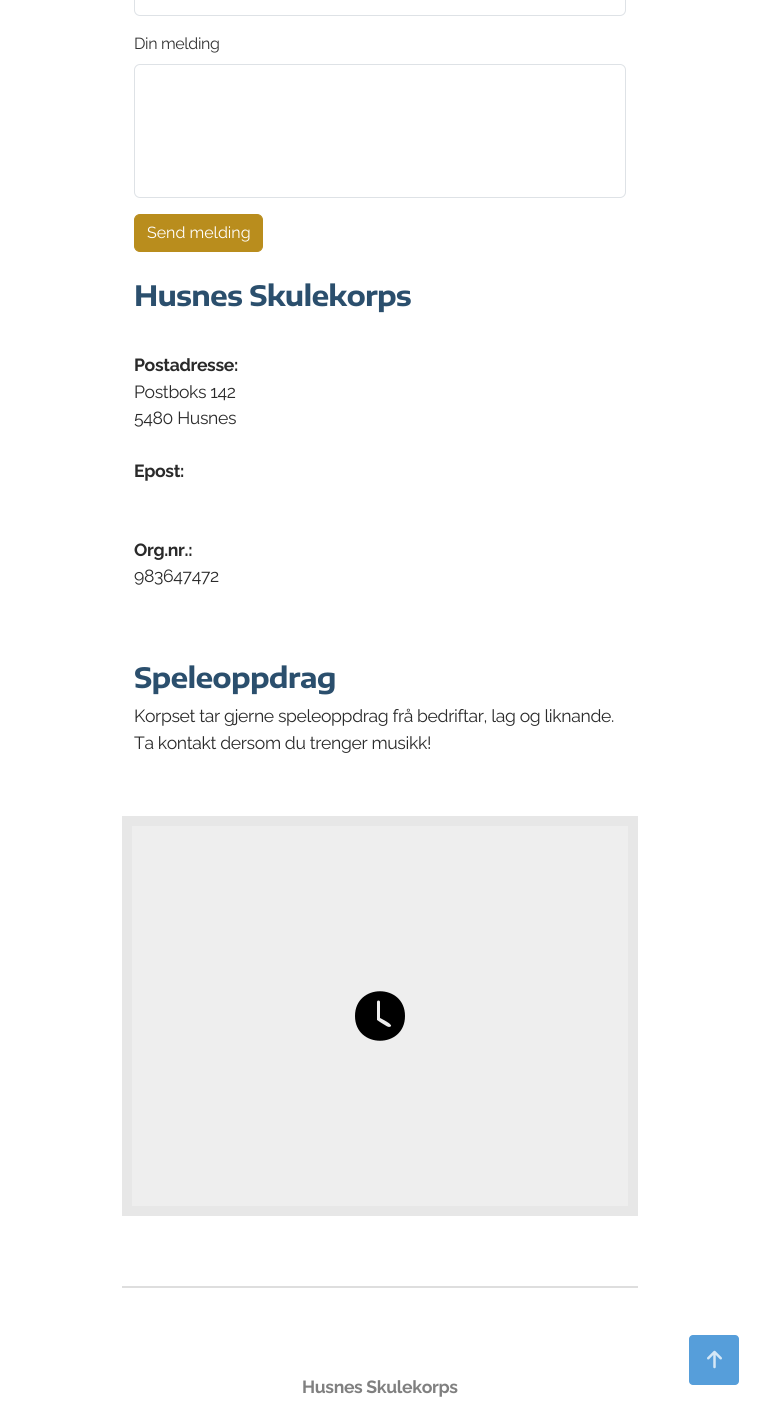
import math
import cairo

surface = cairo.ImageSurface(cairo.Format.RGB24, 759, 1415)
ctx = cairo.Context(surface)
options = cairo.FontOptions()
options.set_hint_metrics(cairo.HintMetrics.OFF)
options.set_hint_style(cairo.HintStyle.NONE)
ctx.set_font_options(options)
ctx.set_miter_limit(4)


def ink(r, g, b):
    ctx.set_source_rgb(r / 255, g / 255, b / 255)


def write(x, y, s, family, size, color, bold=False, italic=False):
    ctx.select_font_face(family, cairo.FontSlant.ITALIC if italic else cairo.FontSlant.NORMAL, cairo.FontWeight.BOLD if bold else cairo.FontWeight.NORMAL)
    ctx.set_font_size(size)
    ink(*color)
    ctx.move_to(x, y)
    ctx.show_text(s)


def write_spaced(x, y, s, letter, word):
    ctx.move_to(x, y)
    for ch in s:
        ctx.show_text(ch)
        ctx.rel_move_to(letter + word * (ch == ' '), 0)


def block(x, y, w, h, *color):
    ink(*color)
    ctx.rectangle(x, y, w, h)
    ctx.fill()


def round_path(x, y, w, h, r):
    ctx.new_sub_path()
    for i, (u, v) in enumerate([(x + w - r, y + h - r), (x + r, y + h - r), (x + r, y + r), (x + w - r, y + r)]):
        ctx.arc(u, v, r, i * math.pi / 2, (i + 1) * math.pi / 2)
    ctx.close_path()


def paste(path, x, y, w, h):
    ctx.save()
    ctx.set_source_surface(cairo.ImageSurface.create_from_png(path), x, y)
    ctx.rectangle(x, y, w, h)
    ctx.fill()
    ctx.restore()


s1 = dict(family="Raleway", size=16, color=(255, 255, 255))

ink(255, 255, 255)
ctx.paint()
round_path(134.5, -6.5, 491, 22, 5.5)
ink(222, 226, 230)
ctx.set_line_width(1)
ctx.stroke()
ctx.select_font_face("Raleway")
ctx.set_font_size(16)
ink(51, 51, 51)
write_spaced(134, 49, "Din melding", -0.35, 0)
round_path(134.5, 64.5, 491, 133, 5.5)
ink(222, 226, 230)
ctx.stroke()
ink(185, 141, 29)
round_path(134.5, 214.5, 128, 37, 5.5)
ctx.fill_preserve()
ctx.stroke()
write(147, 238, "Send melding", **s1)
ctx.select_font_face("Encode Sans Expanded", cairo.FontSlant.NORMAL, cairo.FontWeight.BOLD)
ctx.set_font_size(28)
ink(43, 79, 109)
write_spaced(134, 306, "Husnes Skulekorps", -0.8, 0)
ctx.select_font_face("Raleway", cairo.FontSlant.NORMAL, cairo.FontWeight.BOLD)
ctx.set_font_size(17.6)
ink(42, 42, 42)
write_spaced(134, 371, "Postadresse:", -0.35, 0)
ctx.select_font_face("Raleway")
write_spaced(134, 398, "Postboks 142", -0.35, 0)
write_spaced(134, 424, "5480 Husnes", -0.35, 0)
ctx.select_font_face("Raleway", cairo.FontSlant.NORMAL, cairo.FontWeight.BOLD)
write_spaced(134, 477, "Epost:", -0.35, 0)
write_spaced(134, 556, "Org.nr.:", -0.35, 0)
ctx.select_font_face("Raleway")
write_spaced(134, 582, "983647472", -0.35, 0)
ctx.select_font_face("Encode Sans Expanded", cairo.FontSlant.NORMAL, cairo.FontWeight.BOLD)
ctx.set_font_size(28)
ink(43, 79, 109)
write_spaced(134, 688, "Speleoppdrag", -0.8, 0)
ctx.select_font_face("Raleway")
ctx.set_font_size(17.6)
ink(42, 42, 42)
write_spaced(134, 722, "Korpset tar gjerne speleoppdrag frå bedriftar, lag og liknande.", -0.35, 0)
write_spaced(134, 749, "Ta kontakt dersom du trenger musikk!", -0.35, 0)
block(132, 826, 496, 380, 238, 238, 238)
ink(0, 0, 0)
ctx.set_fill_rule(cairo.FillRule.EVEN_ODD)
ctx.new_path()
ctx.move_to(405, 1016)
ctx.curve_to(405, 1049, 355, 1049, 355, 1016)
ctx.curve_to(355, 983, 405, 983, 405, 1016)
ctx.close_path()
ctx.move_to(380, 1002)
ctx.curve_to(380, 1000, 377, 1000, 377, 1002)
ctx.line_to(377, 1020)
ctx.line_to(383, 1024)
ctx.curve_to(384, 1024, 389, 1029, 391, 1026)
ctx.curve_to(392, 1024, 382, 1019, 380, 1018)
ctx.close_path()
ctx.fill()
ctx.rectangle(127, 821, 506, 390)
ink(231, 231, 231)
ctx.set_line_width(10)
ctx.stroke()
block(122, 1286, 516, 2, 222, 222, 222)
ctx.select_font_face("Raleway", cairo.FontSlant.NORMAL, cairo.FontWeight.BOLD)
ink(128, 128, 128)
write_spaced(302, 1393, "Husnes Skulekorps", -0.35, 0)
ink(86, 158, 218)
round_path(689, 1335, 50, 50, 4)
ctx.fill()
paste("pic1.png", 707, 1350, 15, 19)
surface.write_to_png("screenshot.png")
